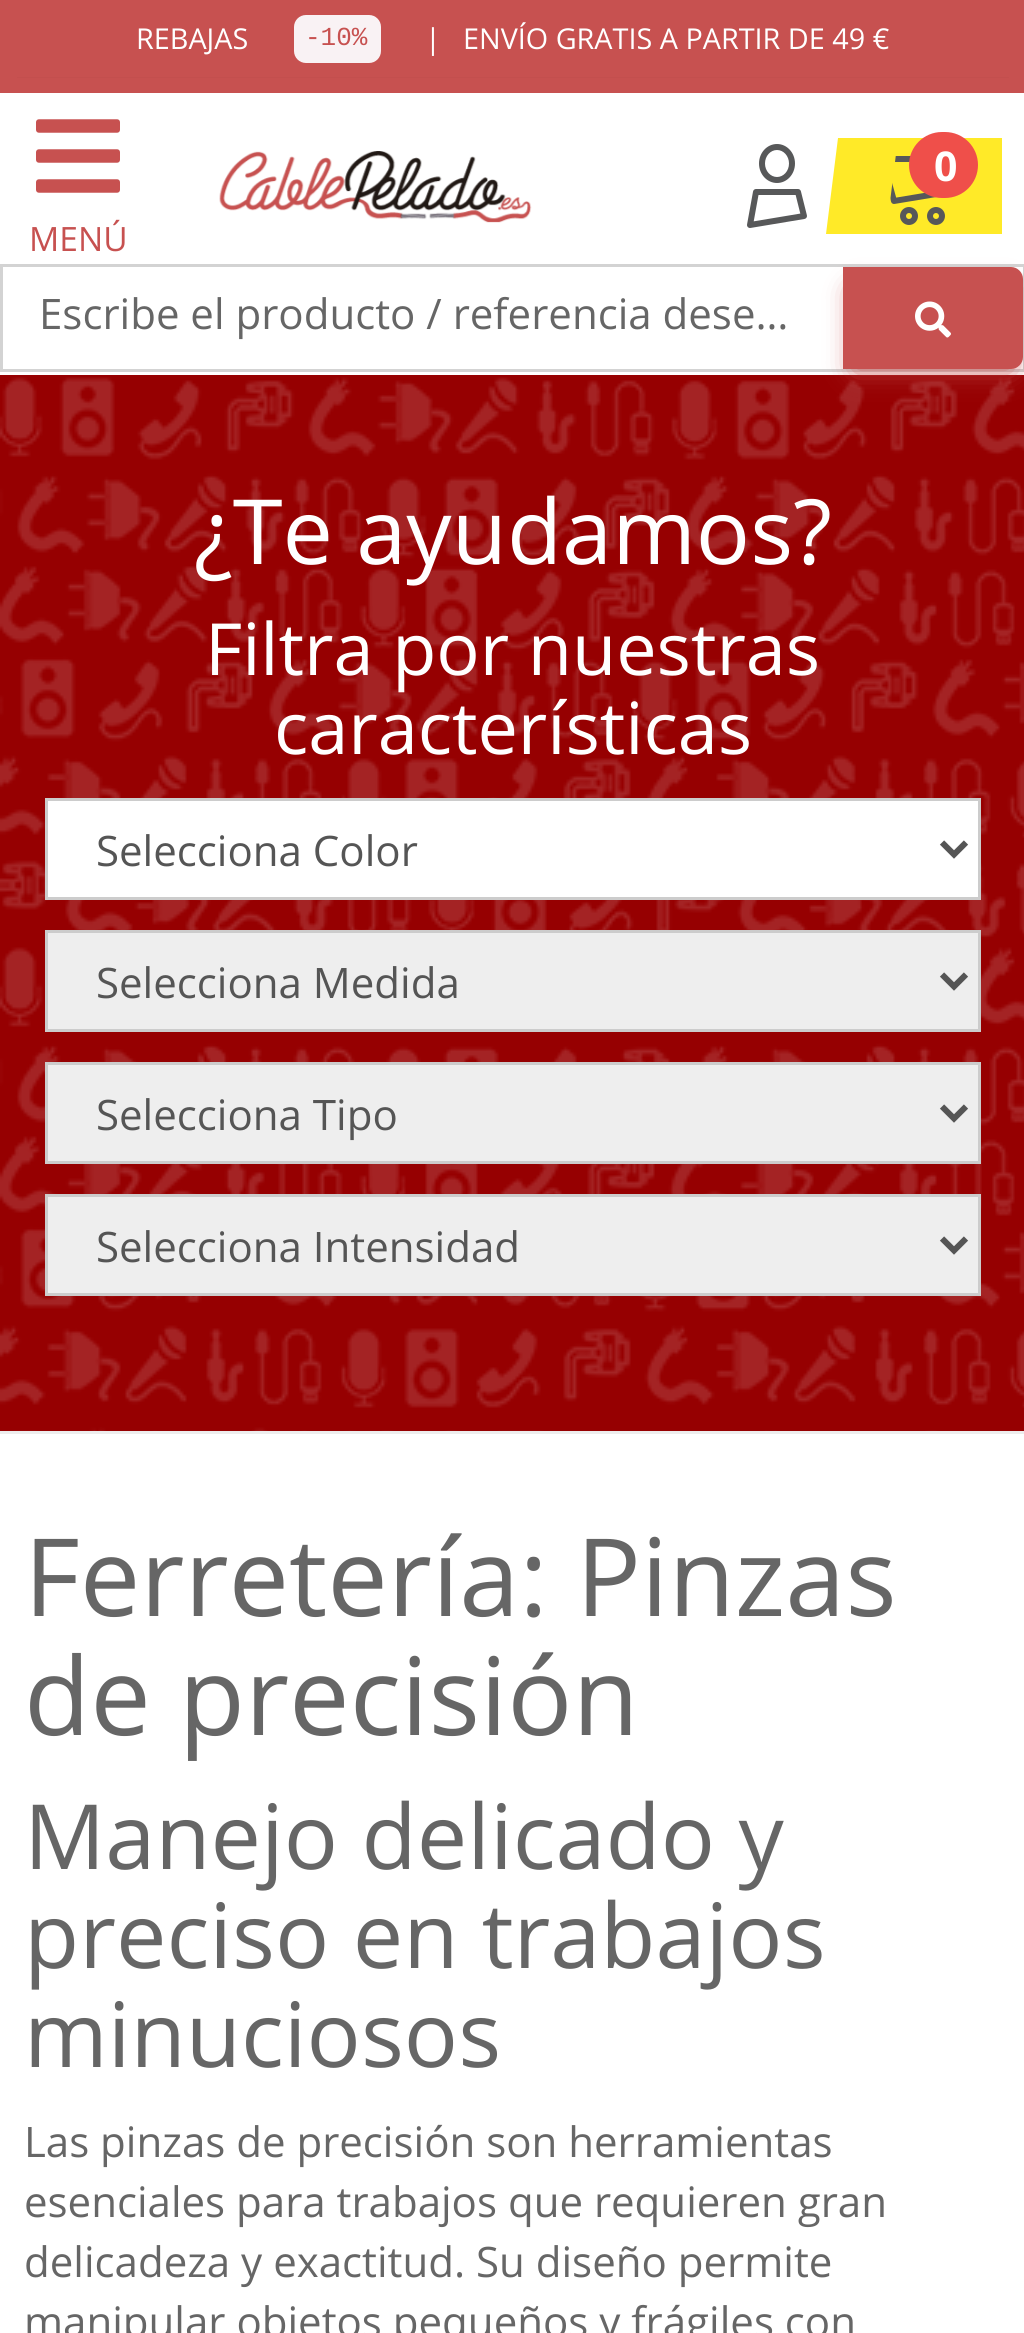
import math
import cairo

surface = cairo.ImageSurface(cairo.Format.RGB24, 1024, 2333)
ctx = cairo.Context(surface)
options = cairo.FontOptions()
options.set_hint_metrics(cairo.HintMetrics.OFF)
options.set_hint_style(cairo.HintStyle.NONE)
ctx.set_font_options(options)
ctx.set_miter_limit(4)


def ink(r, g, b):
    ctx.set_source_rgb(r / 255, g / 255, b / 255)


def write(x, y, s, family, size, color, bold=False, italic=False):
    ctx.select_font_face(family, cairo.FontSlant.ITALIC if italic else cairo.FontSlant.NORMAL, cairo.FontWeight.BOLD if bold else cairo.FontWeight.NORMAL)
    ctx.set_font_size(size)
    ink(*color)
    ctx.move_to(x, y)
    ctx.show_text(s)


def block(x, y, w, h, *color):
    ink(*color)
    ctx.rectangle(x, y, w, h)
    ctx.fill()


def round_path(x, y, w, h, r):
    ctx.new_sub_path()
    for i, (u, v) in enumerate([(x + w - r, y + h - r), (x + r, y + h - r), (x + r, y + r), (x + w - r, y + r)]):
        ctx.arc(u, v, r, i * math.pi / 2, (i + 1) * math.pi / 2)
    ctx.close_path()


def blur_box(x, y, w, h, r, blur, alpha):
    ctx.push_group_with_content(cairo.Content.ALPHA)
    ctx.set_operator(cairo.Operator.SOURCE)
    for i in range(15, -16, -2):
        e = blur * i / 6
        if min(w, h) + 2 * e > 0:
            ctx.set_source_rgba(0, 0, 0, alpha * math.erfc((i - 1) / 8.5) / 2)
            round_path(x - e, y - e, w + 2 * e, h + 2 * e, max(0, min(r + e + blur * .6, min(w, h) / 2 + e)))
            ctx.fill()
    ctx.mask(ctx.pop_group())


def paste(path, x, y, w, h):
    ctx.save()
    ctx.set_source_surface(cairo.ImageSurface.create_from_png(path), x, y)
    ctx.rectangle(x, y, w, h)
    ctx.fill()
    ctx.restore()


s1 = dict(family="Open Sans", size=28.75, color=(255, 255, 255))
s2 = dict(family="Liberation Mono", size=26, color=(199, 81, 80))
s3 = dict(family="Open Sans", size=41, color=(255, 255, 255), bold=True)
s4 = dict(family="Open Sans", size=33.5, color=(199, 81, 80))
s5 = dict(family="Open Sans", size=42, color=(102, 102, 102))
s6 = dict(family="Open Sans", size=90, color=(255, 255, 255))
s7 = dict(family="Open Sans", size=72, color=(255, 255, 255))
s8 = dict(family="Open Sans", size=42, color=(85, 85, 85))
s9 = dict(family="Open Sans", size=108, color=(102, 102, 102))
s10 = dict(family="Open Sans", size=90, color=(102, 102, 102))

ink(255, 255, 255)
ctx.paint()
block(0, 0, 1024, 78, 199, 81, 80)
write(136, 49, "REBAJAS", **s1)
ctx.save()
ctx.rectangle(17, 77, 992, 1)
ctx.clip()
ink(0, 0, 0)
blur_box(0, 90, 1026, 186, 0, 9, 0.25)
ctx.restore()
ink(249, 242, 244)
round_path(294, 15, 87, 48, 12)
ctx.fill()
write(305, 45, "-10%", **s2)
write(425, 49, "|", **s1)
write(463, 49, "ENVÍO GRATIS A PARTIR DE 49 €", **s1)
block(0, 78, 1024, 15, 199, 81, 80)
paste("pic1.png", 747, 144, 60, 84)
block(886, 138, 116, 96, 255, 234, 40)
paste("pic2.png", 890, 156, 55, 69)
ctx.new_path()
ctx.move_to(838, 138)
ctx.line_to(898, 138)
ctx.line_to(886, 234)
ctx.line_to(826, 234)
ctx.close_path()
ctx.fill()
ink(239, 79, 74)
round_path(909, 132, 69, 66, 33)
ctx.fill()
write(934, 181, "0", **s3)
paste("pic3.png", 219, 151, 313, 72)
paste("pic4.png", 36, 119, 84, 74)
write(29, 251, "MENÚ", **s4)
block(3, 267, 1020, 25, 255, 255, 255)
ctx.rectangle(1.5, 265.5, 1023, 105)
ink(211, 211, 211)
ctx.set_line_width(3)
ctx.stroke()
write(39, 329, "Escribe el producto / referencia dese…", **s5)
paste("pic6.png", 0, 375, 1024, 1056)
ink(199, 81, 80)
blur_box(855, 291, 156, 78, 0, 13.5, 1)
ink(199, 81, 80)
ctx.new_path()
ctx.move_to(843, 267)
ctx.line_to(1011, 267)
ctx.curve_to(1017.5, 267, 1023, 272.5, 1023, 279)
ctx.line_to(1023, 357)
ctx.curve_to(1023, 363.5, 1017.5, 369, 1011, 369)
ctx.line_to(843, 369)
ctx.close_path()
ctx.fill()
paste("pic5.png", 915, 301, 36, 37)
block(0, 1431, 1024, 3, 237, 237, 237)
write(194, 564, "¿Te ayudamos?", **s6)
write(205, 675, "Filtra por nuestras", **s7)
write(274, 754, "características", **s7)
ctx.rectangle(46.5, 799.5, 933, 99)
ctx.fill_preserve()
ink(204, 204, 204)
ctx.stroke()
ctx.new_path()
ctx.move_to(942, 842.5)
ctx.line_to(954, 854.5)
ctx.line_to(966, 842.5)
ink(85, 85, 85)
ctx.set_line_width(6)
ctx.stroke()
write(96, 866, "Selecciona Color", **s8)
ink(238, 238, 238)
ctx.rectangle(46.5, 931.5, 933, 99)
ctx.fill_preserve()
ink(204, 204, 204)
ctx.set_line_width(3)
ctx.stroke()
ctx.new_path()
ctx.move_to(942, 974.5)
ctx.line_to(954, 986.5)
ctx.line_to(966, 974.5)
ink(85, 85, 85)
ctx.set_line_width(6)
ctx.stroke()
write(96, 998, "Selecciona Medida", **s8)
ink(238, 238, 238)
ctx.rectangle(46.5, 1063.5, 933, 99)
ctx.fill_preserve()
ink(204, 204, 204)
ctx.set_line_width(3)
ctx.stroke()
ctx.new_path()
ctx.move_to(942, 1106.5)
ctx.line_to(954, 1118.5)
ctx.line_to(966, 1106.5)
ink(85, 85, 85)
ctx.set_line_width(6)
ctx.stroke()
write(96, 1130, "Selecciona Tipo", **s8)
ink(238, 238, 238)
ctx.rectangle(46.5, 1195.5, 933, 99)
ctx.fill_preserve()
ink(204, 204, 204)
ctx.set_line_width(3)
ctx.stroke()
ctx.new_path()
ctx.move_to(942, 1238.5)
ctx.line_to(954, 1250.5)
ctx.line_to(966, 1238.5)
ink(85, 85, 85)
ctx.set_line_width(6)
ctx.stroke()
write(96, 1262, "Selecciona Intensidad", **s8)
write(24, 1616, "Ferretería: Pinzas", **s9)
write(24, 1735, "de precisión", **s9)
write(24, 1869, "Manejo delicado y", **s10)
write(24, 1968, "preciso en trabajos", **s10)
write(24, 2067, "minuciosos", **s10)
write(24, 2157, "Las pinzas de precisión son herramientas", **s5)
write(24, 2217, "esenciales para trabajos que requieren gran", **s5)
write(24, 2277, "delicadeza y exactitud. Su diseño permite", **s5)
write(24, 2337, "manipular objetos pequeños y frágiles con", **s5)
surface.write_to_png("screenshot.png")
